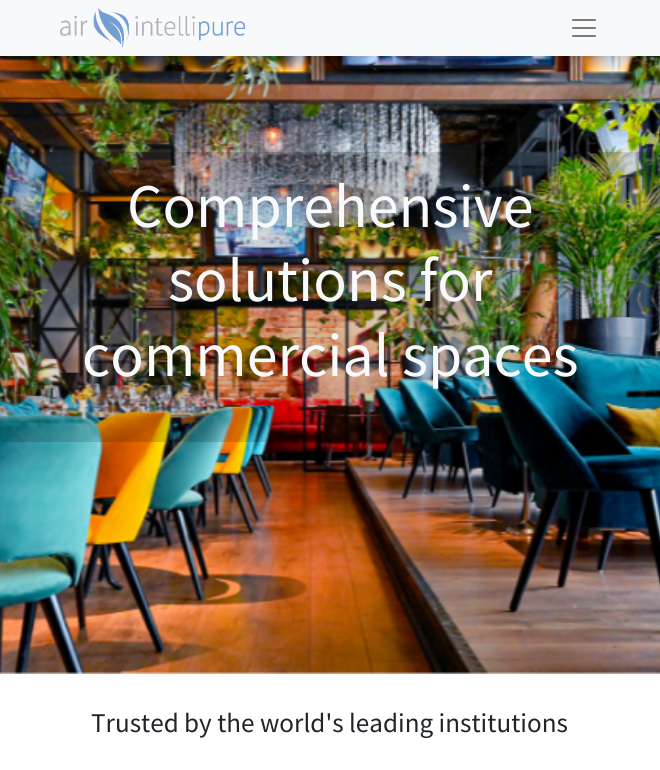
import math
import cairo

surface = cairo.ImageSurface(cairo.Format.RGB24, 660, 770)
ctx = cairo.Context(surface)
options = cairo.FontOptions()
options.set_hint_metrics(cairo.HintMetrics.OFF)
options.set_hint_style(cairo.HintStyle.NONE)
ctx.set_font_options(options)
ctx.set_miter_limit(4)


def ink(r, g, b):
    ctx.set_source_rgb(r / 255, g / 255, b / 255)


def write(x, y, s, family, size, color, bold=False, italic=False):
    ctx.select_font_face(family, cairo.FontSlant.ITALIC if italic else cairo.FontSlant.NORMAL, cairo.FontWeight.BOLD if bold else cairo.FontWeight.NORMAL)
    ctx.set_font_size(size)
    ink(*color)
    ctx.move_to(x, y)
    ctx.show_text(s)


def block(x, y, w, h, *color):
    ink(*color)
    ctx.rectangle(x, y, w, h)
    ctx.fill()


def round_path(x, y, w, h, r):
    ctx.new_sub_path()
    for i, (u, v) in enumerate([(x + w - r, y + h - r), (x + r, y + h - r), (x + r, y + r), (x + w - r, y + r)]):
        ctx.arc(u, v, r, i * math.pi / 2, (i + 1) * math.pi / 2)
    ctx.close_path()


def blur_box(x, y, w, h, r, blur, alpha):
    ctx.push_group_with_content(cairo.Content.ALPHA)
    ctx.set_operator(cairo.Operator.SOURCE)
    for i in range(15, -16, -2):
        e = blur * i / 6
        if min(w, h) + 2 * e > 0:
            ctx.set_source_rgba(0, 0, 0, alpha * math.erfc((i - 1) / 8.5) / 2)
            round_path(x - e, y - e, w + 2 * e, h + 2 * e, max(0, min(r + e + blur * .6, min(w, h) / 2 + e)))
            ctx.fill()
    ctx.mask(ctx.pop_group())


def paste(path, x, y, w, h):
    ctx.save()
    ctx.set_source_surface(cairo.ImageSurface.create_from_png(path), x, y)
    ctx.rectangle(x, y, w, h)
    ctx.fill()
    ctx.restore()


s1 = dict(family="Source Sans Pro", size=62, color=(248, 249, 250))
s2 = dict(family="Source Sans Pro", size=27.1, color=(33, 37, 41))

ink(255, 255, 255)
ctx.paint()
paste("pic3.png", 0, 56, 660, 618)
ink(0, 0, 0)
blur_box(0, 2, 660, 56, 0, 2, 0.07)
block(0, 0, 660, 56, 248, 249, 250)
paste("pic1.png", 60, 8, 185, 40)
paste("pic2.png", 572, 19, 24, 18)
ctx.set_source_rgba(0, 0, 0, 0.15)
round_path(0, 152, 660, 290, 4)
ctx.fill()
write(127, 227, "Comprehensive", **s1)
write(168, 301, "solutions for", **s1)
write(82, 376, "commercial spaces", **s1)
write(91, 732, "Trusted by the world's leading institutions", **s2)
surface.write_to_png("screenshot.png")
